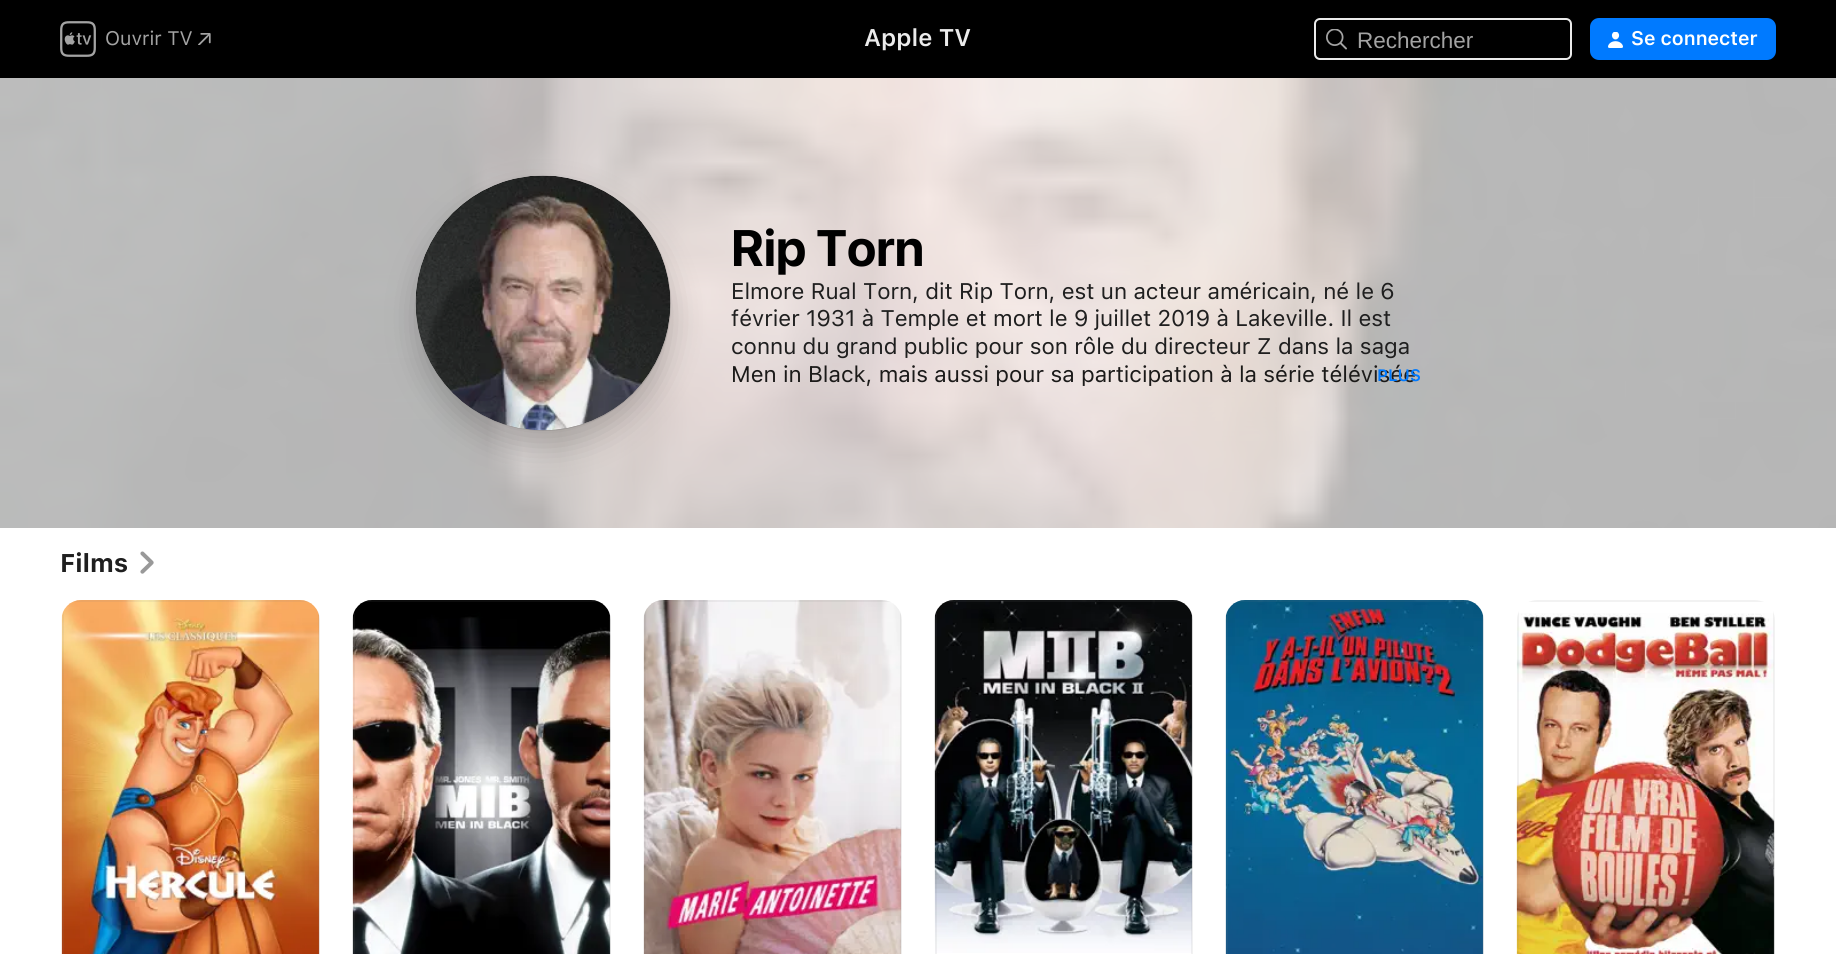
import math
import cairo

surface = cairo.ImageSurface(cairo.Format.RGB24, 1836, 954)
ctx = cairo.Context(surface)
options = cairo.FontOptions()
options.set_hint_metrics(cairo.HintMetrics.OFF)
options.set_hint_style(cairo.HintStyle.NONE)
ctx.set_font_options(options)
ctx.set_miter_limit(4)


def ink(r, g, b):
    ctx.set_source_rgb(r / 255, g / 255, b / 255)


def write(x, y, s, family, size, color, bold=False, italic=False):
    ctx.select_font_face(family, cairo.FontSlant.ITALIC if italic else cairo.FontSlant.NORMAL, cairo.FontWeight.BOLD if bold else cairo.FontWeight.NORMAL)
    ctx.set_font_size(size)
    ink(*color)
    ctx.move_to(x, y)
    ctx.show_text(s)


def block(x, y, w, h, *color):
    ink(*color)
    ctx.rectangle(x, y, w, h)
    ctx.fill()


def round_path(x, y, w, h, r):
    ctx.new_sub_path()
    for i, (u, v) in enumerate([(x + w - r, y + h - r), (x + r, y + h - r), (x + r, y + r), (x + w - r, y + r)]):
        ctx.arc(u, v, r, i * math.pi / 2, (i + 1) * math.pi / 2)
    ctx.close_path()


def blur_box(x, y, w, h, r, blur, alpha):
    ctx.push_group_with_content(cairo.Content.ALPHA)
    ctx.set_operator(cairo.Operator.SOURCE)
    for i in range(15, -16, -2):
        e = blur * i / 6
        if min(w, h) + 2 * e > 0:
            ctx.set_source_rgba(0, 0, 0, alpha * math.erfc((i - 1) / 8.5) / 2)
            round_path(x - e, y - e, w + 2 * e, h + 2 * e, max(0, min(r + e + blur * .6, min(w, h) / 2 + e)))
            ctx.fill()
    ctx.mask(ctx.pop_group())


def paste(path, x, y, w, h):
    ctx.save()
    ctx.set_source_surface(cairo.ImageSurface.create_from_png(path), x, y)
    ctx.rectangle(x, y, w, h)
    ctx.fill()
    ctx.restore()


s1 = dict(family="SF", size=19.5, color=(163, 163, 163))
s2 = dict(family="SF SemiBold", size=24, color=(235, 235, 235))
s3 = dict(family="Liberation Sans", size=22.5, color=(163, 163, 163))
s4 = dict(family="SF SemiBold", size=19.5, color=(255, 255, 255))
s5 = dict(family="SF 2", size=51, color=(0, 0, 0), bold=True)
s6 = dict(family="SF", size=22.5, color=(31, 31, 31))
s7 = dict(family="SF", size=22.5, color=(27, 26, 25))
s8 = dict(family="SF SemiBold", size=16.5, color=(0, 122, 255))
s9 = dict(family="SF", size=25.5, color=(31, 31, 31), bold=True)

ink(255, 255, 255)
ctx.paint()
block(0, 0, 1836, 78, 0, 0, 0)
paste("pic1.png", 60, 21, 36, 36)
write(105, 45, "Ouvrir TV", **s1)
paste("pic2.png", 198, 33, 13, 12)
write(864, 46, "Apple TV", **s2)
round_path(1315, 19, 256, 40, 5)
ctx.stroke()
paste("pic3.png", 1326, 29, 21, 21)
write(1357, 48, "Rechercher", **s3)
ink(0, 122, 255)
round_path(1590, 18, 186, 42, 9)
ctx.fill()
paste("pic4.png", 1608, 32, 15, 16)
write(1631, 45, "Se connecter", **s4)
paste("pic5.png", 0, 78, 1836, 450)
ink(0, 0, 0)
blur_box(416, 191, 255, 255, 127.5, 15, 0.2)
ctx.arc(543.5, 303.5, 126.5, 0, 2 * math.pi)
ctx.set_source_rgba(0, 0, 0, 0.08)
ctx.stroke()
paste("pic6.png", 415, 175, 256, 256)
ctx.set_source_rgba(0.502, 0.502, 0.502, 0.1)
ctx.new_path()
ctx.move_to(544, 176)
ctx.curve_to(614, 176, 671, 233, 671, 304)
ctx.curve_to(671, 374, 614, 431, 544, 431)
ctx.curve_to(473, 431, 416, 374, 416, 304)
ctx.curve_to(416, 233, 473, 176, 544, 176)
ctx.close_path()
ctx.fill()
write(731, 266, "Rip Torn", **s5)
write(731, 299, "Elmore Rual Torn, dit Rip Torn, est un acteur américain, né le 6", **s6)
write(731, 326, "février 1931 à Temple et mort le 9 juillet 2019 à Lakeville. Il est", **s6)
write(731, 354, "connu du grand public pour son rôle du directeur Z dans la saga", **s6)
write(731, 382, "Men in Black, mais aussi pour sa participation à la série télévisée", **s7)
write(1377, 381, "PLUS", **s8)
write(60, 572, "Films", **s9)
paste("pic7.png", 140, 551, 14, 23)
paste("pic8.png", 61, 600, 259, 354)
ctx.set_source_rgba(0.502, 0.502, 0.502, 0.1)
ctx.set_fill_rule(cairo.FillRule.EVEN_ODD)
ctx.new_path()
ctx.move_to(62, 620)
ctx.line_to(62, 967)
ctx.curve_to(62, 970, 63, 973, 64, 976)
ctx.line_to(64, 611)
ctx.curve_to(63, 614, 62, 617, 62, 620)
ctx.close_path()
ctx.move_to(82, 600)
ctx.curve_to(79, 600, 76, 601, 73, 602)
ctx.line_to(309, 602)
ctx.curve_to(306, 601, 303, 600, 300, 600)
ctx.close_path()
ctx.move_to(320, 620)
ctx.curve_to(320, 617, 319, 614, 318, 611)
ctx.line_to(318, 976)
ctx.curve_to(319, 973, 320, 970, 320, 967)
ctx.close_path()
ctx.move_to(300, 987)
ctx.curve_to(303, 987, 306, 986, 309, 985)
ctx.line_to(73, 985)
ctx.curve_to(76, 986, 79, 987, 82, 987)
ctx.close_path()
ctx.fill()
paste("pic9.png", 352, 600, 259, 354)
ctx.new_path()
ctx.move_to(353, 620)
ctx.line_to(353, 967)
ctx.curve_to(353, 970, 354, 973, 355, 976)
ctx.line_to(355, 611)
ctx.curve_to(354, 614, 353, 617, 353, 620)
ctx.close_path()
ctx.move_to(373, 600)
ctx.curve_to(370, 600, 367, 601, 364, 602)
ctx.line_to(600, 602)
ctx.curve_to(597, 601, 594, 600, 591, 600)
ctx.close_path()
ctx.move_to(611, 620)
ctx.curve_to(611, 617, 610, 614, 609, 611)
ctx.line_to(609, 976)
ctx.curve_to(610, 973, 611, 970, 611, 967)
ctx.close_path()
ctx.move_to(591, 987)
ctx.curve_to(594, 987, 597, 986, 600, 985)
ctx.line_to(364, 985)
ctx.curve_to(367, 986, 370, 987, 373, 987)
ctx.close_path()
ctx.fill()
paste("pic10.png", 643, 600, 259, 354)
ctx.new_path()
ctx.move_to(644, 620)
ctx.line_to(644, 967)
ctx.curve_to(644, 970, 645, 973, 646, 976)
ctx.line_to(646, 611)
ctx.curve_to(645, 614, 644, 617, 644, 620)
ctx.close_path()
ctx.move_to(664, 600)
ctx.curve_to(661, 600, 658, 601, 655, 602)
ctx.line_to(891, 602)
ctx.curve_to(888, 601, 885, 600, 882, 600)
ctx.close_path()
ctx.move_to(902, 620)
ctx.curve_to(902, 617, 901, 614, 900, 611)
ctx.line_to(900, 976)
ctx.curve_to(901, 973, 902, 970, 902, 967)
ctx.close_path()
ctx.move_to(882, 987)
ctx.curve_to(885, 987, 888, 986, 891, 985)
ctx.line_to(655, 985)
ctx.curve_to(658, 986, 661, 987, 664, 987)
ctx.close_path()
ctx.fill()
paste("pic11.png", 934, 600, 259, 353)
ctx.new_path()
ctx.move_to(935, 620)
ctx.line_to(935, 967)
ctx.curve_to(935, 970, 936, 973, 937, 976)
ctx.line_to(937, 611)
ctx.curve_to(936, 614, 935, 617, 935, 620)
ctx.close_path()
ctx.move_to(955, 600)
ctx.curve_to(952, 600, 949, 601, 946, 602)
ctx.line_to(1182, 602)
ctx.curve_to(1179, 601, 1176, 600, 1173, 600)
ctx.close_path()
ctx.move_to(1193, 620)
ctx.curve_to(1193, 617, 1192, 614, 1191, 611)
ctx.line_to(1191, 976)
ctx.curve_to(1192, 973, 1193, 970, 1193, 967)
ctx.close_path()
ctx.move_to(1173, 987)
ctx.curve_to(1176, 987, 1179, 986, 1182, 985)
ctx.line_to(946, 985)
ctx.curve_to(949, 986, 952, 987, 955, 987)
ctx.close_path()
ctx.fill()
paste("pic12.png", 1225, 600, 259, 354)
ctx.new_path()
ctx.move_to(1226, 620)
ctx.line_to(1226, 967)
ctx.curve_to(1226, 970, 1227, 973, 1228, 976)
ctx.line_to(1228, 611)
ctx.curve_to(1227, 614, 1226, 617, 1226, 620)
ctx.close_path()
ctx.move_to(1246, 600)
ctx.curve_to(1243, 600, 1240, 601, 1237, 602)
ctx.line_to(1473, 602)
ctx.curve_to(1470, 601, 1467, 600, 1464, 600)
ctx.close_path()
ctx.move_to(1484, 620)
ctx.curve_to(1484, 617, 1483, 614, 1482, 611)
ctx.line_to(1482, 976)
ctx.curve_to(1483, 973, 1484, 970, 1484, 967)
ctx.close_path()
ctx.move_to(1464, 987)
ctx.curve_to(1467, 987, 1470, 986, 1473, 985)
ctx.line_to(1237, 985)
ctx.curve_to(1240, 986, 1243, 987, 1246, 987)
ctx.close_path()
ctx.fill()
paste("pic13.png", 1516, 613, 259, 341)
ctx.new_path()
ctx.move_to(1517, 620)
ctx.line_to(1517, 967)
ctx.curve_to(1517, 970, 1518, 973, 1519, 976)
ctx.line_to(1519, 611)
ctx.curve_to(1518, 614, 1517, 617, 1517, 620)
ctx.close_path()
ctx.move_to(1537, 600)
ctx.curve_to(1534, 600, 1531, 601, 1528, 602)
ctx.line_to(1764, 602)
ctx.curve_to(1761, 601, 1758, 600, 1755, 600)
ctx.close_path()
ctx.move_to(1775, 620)
ctx.curve_to(1775, 617, 1774, 614, 1773, 611)
ctx.line_to(1773, 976)
ctx.curve_to(1774, 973, 1775, 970, 1775, 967)
ctx.close_path()
ctx.move_to(1755, 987)
ctx.curve_to(1758, 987, 1761, 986, 1764, 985)
ctx.line_to(1528, 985)
ctx.curve_to(1531, 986, 1534, 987, 1537, 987)
ctx.close_path()
ctx.fill()
surface.write_to_png("screenshot.png")
